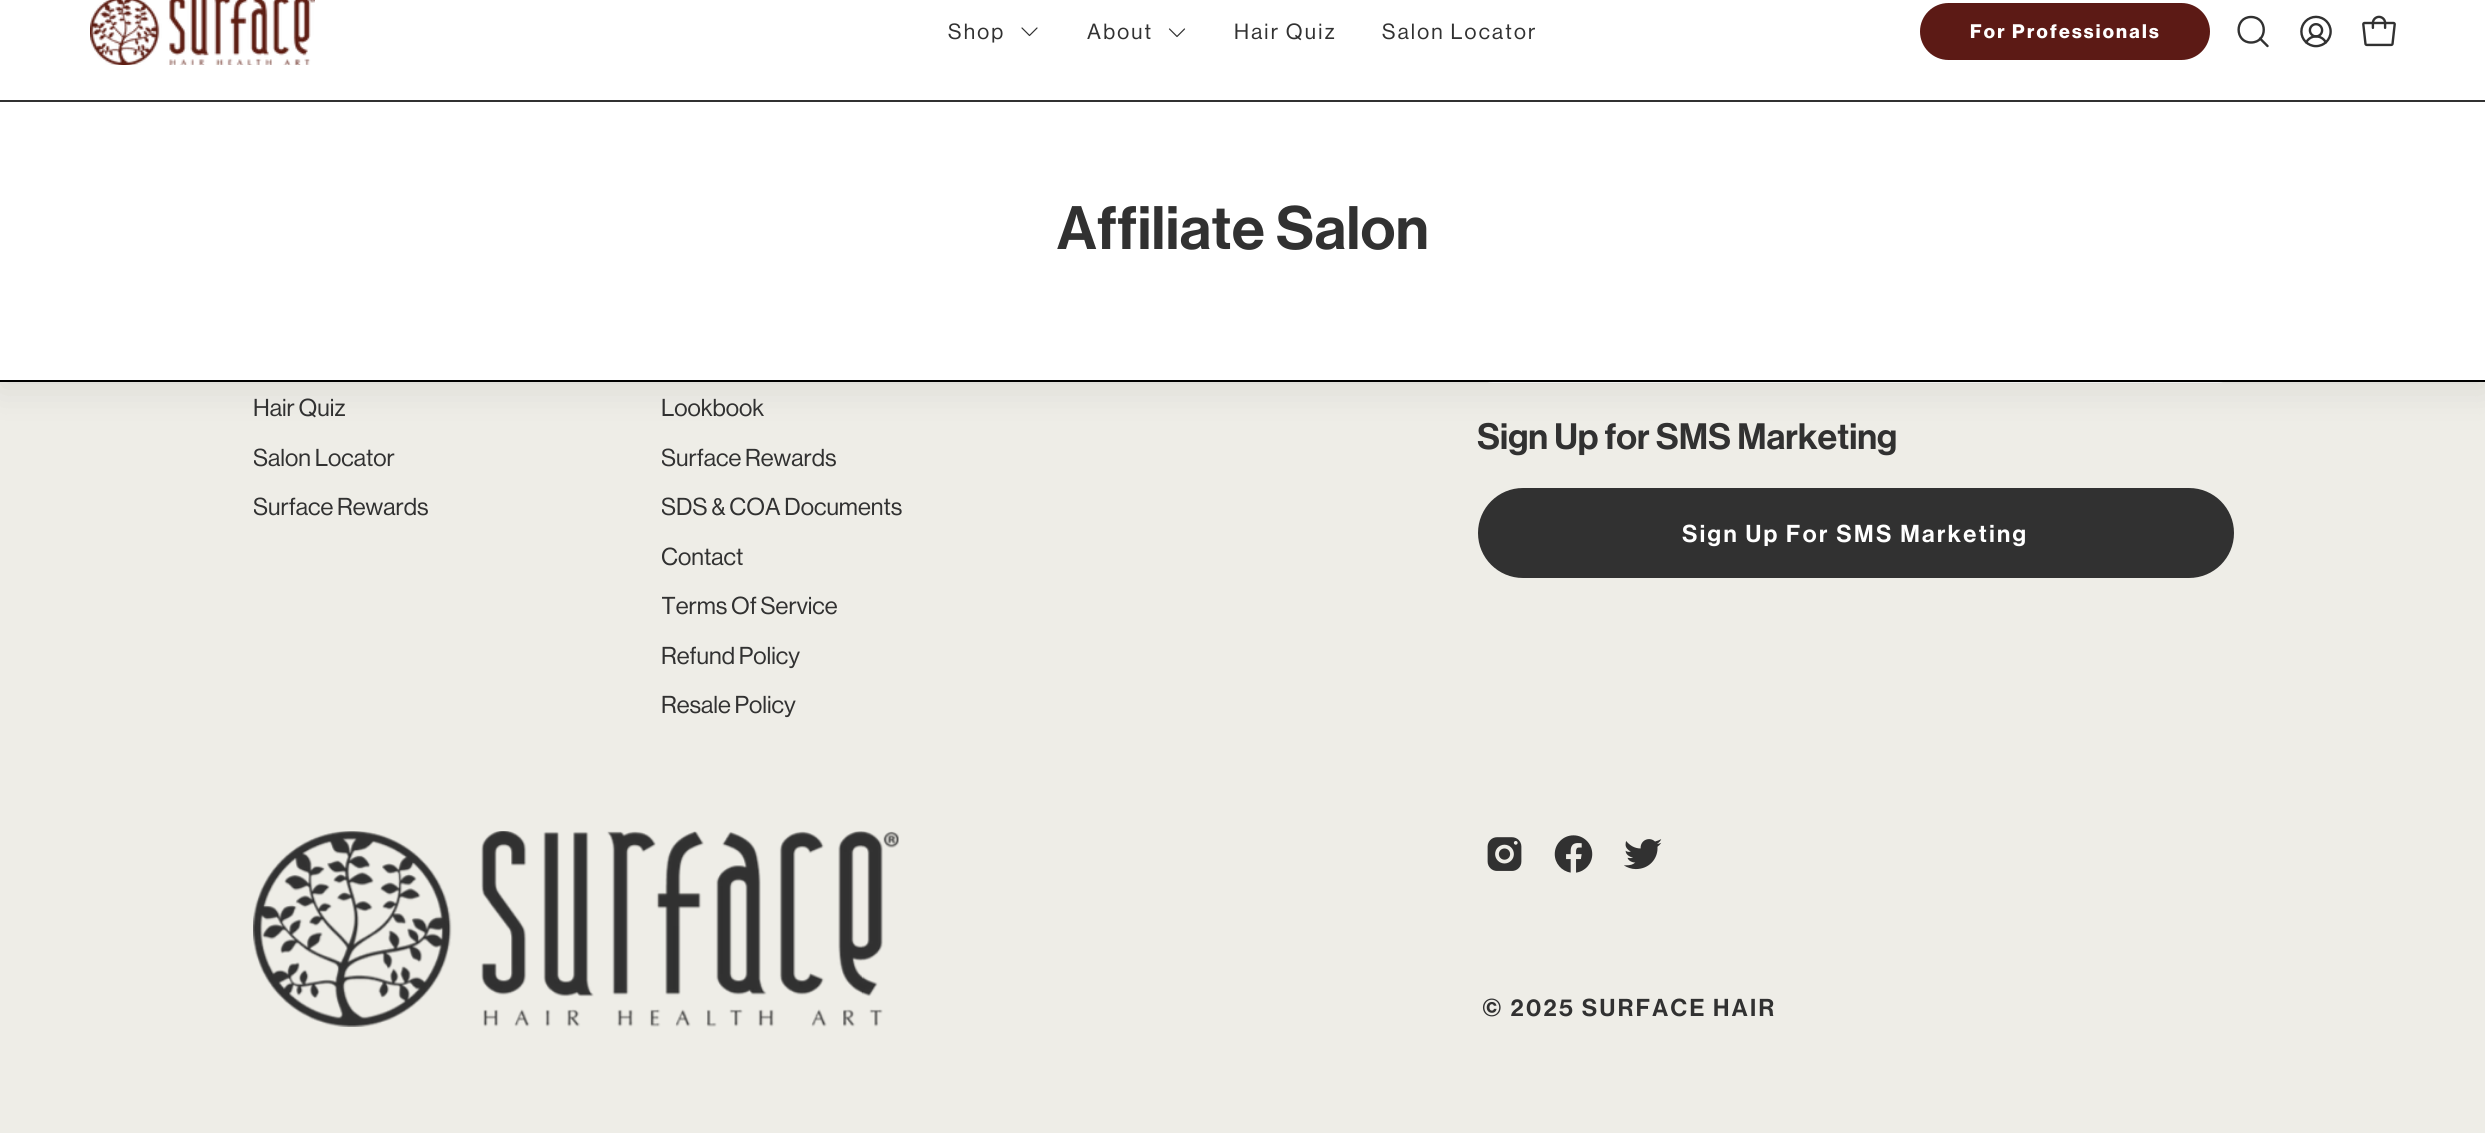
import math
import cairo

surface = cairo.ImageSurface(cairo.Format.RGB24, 2485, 1133)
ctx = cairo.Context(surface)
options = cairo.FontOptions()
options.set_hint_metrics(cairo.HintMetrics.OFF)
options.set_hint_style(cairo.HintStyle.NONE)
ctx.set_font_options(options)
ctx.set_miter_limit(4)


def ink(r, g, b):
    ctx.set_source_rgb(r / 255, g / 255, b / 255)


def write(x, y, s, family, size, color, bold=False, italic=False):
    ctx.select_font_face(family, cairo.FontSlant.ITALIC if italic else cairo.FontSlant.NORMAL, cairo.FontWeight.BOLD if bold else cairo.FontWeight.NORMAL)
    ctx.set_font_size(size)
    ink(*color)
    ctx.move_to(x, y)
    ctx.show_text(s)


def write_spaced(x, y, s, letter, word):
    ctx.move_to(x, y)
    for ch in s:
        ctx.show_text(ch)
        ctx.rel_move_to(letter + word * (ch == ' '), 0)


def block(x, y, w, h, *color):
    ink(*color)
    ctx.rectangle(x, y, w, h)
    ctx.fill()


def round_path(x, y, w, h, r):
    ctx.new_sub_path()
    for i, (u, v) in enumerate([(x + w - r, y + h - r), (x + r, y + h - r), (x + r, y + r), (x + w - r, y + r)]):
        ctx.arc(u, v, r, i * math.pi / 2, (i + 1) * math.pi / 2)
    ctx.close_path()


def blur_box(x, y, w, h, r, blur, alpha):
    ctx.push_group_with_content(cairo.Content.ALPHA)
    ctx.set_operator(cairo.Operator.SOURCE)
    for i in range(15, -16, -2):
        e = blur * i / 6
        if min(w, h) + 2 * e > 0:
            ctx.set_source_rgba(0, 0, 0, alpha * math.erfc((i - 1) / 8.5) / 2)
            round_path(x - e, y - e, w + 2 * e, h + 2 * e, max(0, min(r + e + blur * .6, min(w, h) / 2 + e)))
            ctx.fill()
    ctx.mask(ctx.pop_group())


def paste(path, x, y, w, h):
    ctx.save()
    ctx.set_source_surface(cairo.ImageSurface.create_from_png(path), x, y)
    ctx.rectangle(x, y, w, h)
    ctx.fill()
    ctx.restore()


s1 = dict(family="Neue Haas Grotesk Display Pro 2 Medium", size=24, color=(49, 49, 49))
s2 = dict(family="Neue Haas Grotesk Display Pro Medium", size=36, color=(49, 49, 49))

ink(238, 237, 231)
ctx.paint()
ctx.new_path()
ctx.move_to(1493, 303.5)
ctx.line_to(2151.5, 303.5)
ctx.line_to(2151.5, 381.5)
ctx.line_to(1493, 381.5)
ctx.curve_to(1485.5, 381.5, 1479.5, 375.5, 1479.5, 368)
ctx.line_to(1479.5, 317)
ctx.curve_to(1479.5, 309.5, 1485.5, 303.5, 1493, 303.5)
ctx.close_path()
ink(255, 255, 255)
ctx.set_line_width(3)
ctx.stroke()
ctx.new_path()
ctx.move_to(2229, 379)
ctx.curve_to(2226, 381, 2222, 383, 2218, 383)
ctx.line_to(2153, 383)
ctx.line_to(2154, 380)
ctx.line_to(2218, 380)
ctx.curve_to(2222, 380, 2225, 379, 2227, 376)
ctx.close_path()
ctx.fill()
ink(0, 0, 0)
blur_box(0, 107, 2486, 280, 0, 18.5, 0.1)
block(0, 0, 2485, 100, 255, 255, 255)
paste("pic1.png", 90, 0, 225, 65)
ctx.select_font_face("Neue Haas Grotesk Display Pro 2 Medium")
ctx.set_font_size(21.5)
ink(49, 49, 49)
write_spaced(948, 39, "Shop", 2.2, 0)
ctx.new_path()
ctx.move_to(1037, 28)
ctx.line_to(1029.5, 35.5)
ctx.line_to(1022, 28)
ctx.set_line_width(1.2)
ctx.set_line_cap(cairo.LineCap.ROUND)
ctx.set_line_join(cairo.LineJoin.ROUND)
ctx.stroke()
write_spaced(1087, 39, "About", 2.2, 0)
ctx.new_path()
ctx.move_to(1184.5, 29)
ctx.line_to(1177, 36.5)
ctx.line_to(1169.5, 29)
ctx.stroke()
write_spaced(1234, 39, "Hair Quiz", 2.2, 0)
write_spaced(1382, 39, "Salon Locator", 2.2, 0)
ink(92, 26, 21)
round_path(1920, 3, 290, 57, 28.5)
ctx.fill()
ctx.select_font_face("Neue Haas Grotesk Display Pro", cairo.FontSlant.NORMAL, cairo.FontWeight.BOLD)
ctx.set_font_size(19.25)
ink(255, 255, 255)
write_spaced(1970, 38, "For Professionals", 2.25, 0)
ctx.new_path()
ctx.move_to(2251, 42.5)
ctx.curve_to(2268, 42.5, 2268, 17, 2251, 17)
ctx.curve_to(2234.5, 17, 2234.5, 42.5, 2251, 42.5)
ctx.close_path()
ctx.move_to(2260, 38.5)
ctx.line_to(2267.5, 46)
ink(49, 49, 49)
ctx.set_line_width(2.4)
ctx.stroke()
paste("pic2.png", 2300, 15, 32, 33)
paste("pic3.png", 2362, 15, 34, 32)
ctx.new_path()
ctx.move_to(0, 100)
ctx.line_to(0, 102)
ctx.line_to(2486, 102)
ctx.line_to(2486, -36)
ctx.line_to(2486, 100)
ctx.close_path()
ctx.fill()
block(0, 102, 2485, 278, 255, 255, 255)
block(0, 380, 2485, 2, 0, 0, 0)
ctx.select_font_face("Neue Haas Grotesk Display Pro Medium")
ctx.set_font_size(60)
ink(49, 49, 49)
write_spaced(1057, 249, "Affiliate Salon", 0.5, 0)
write(253, 416, "Hair Quiz", **s1)
ctx.save()
ctx.rectangle(254, 290, 348, 235)
ctx.clip()
write(253, 466, "Salon Locator", **s1)
write(253, 515, "Surface Rewards", **s1)
ctx.restore()
write(661, 416, "Lookbook", **s1)
ctx.save()
ctx.rectangle(662, 290, 348, 433)
ctx.clip()
write(661, 466, "Surface Rewards", **s1)
write(661, 515, "SDS & COA Documents", **s1)
write(661, 565, "Contact", **s1)
write(661, 614, "Terms Of Service", **s1)
ctx.restore()
write(661, 664, "Refund Policy", **s1)
write(661, 713, "Resale Policy", **s1)
write(1477, 449, "Sign Up for SMS Marketing", **s2)
round_path(1479.5, 489.5, 753, 87, 43.5)
ctx.fill_preserve()
ctx.set_line_width(3)
ctx.set_line_cap(cairo.LineCap.BUTT)
ctx.set_line_join(cairo.LineJoin.MITER)
ctx.stroke()
ctx.set_font_size(24)
ink(255, 255, 255)
write_spaced(1682, 542, "Sign Up For SMS Marketing", 2.4, 0)
paste("pic4.png", 253, 831, 646, 196)
paste("pic5.png", 1487, 837, 35, 34)
paste("pic6.png", 1554, 835, 39, 38)
paste("pic7.png", 1624, 839, 38, 31)
ink(49, 49, 49)
write_spaced(1482, 1016, "© 2025 SURFACE HAIR", 2.4, 0)
surface.write_to_png("screenshot.png")
